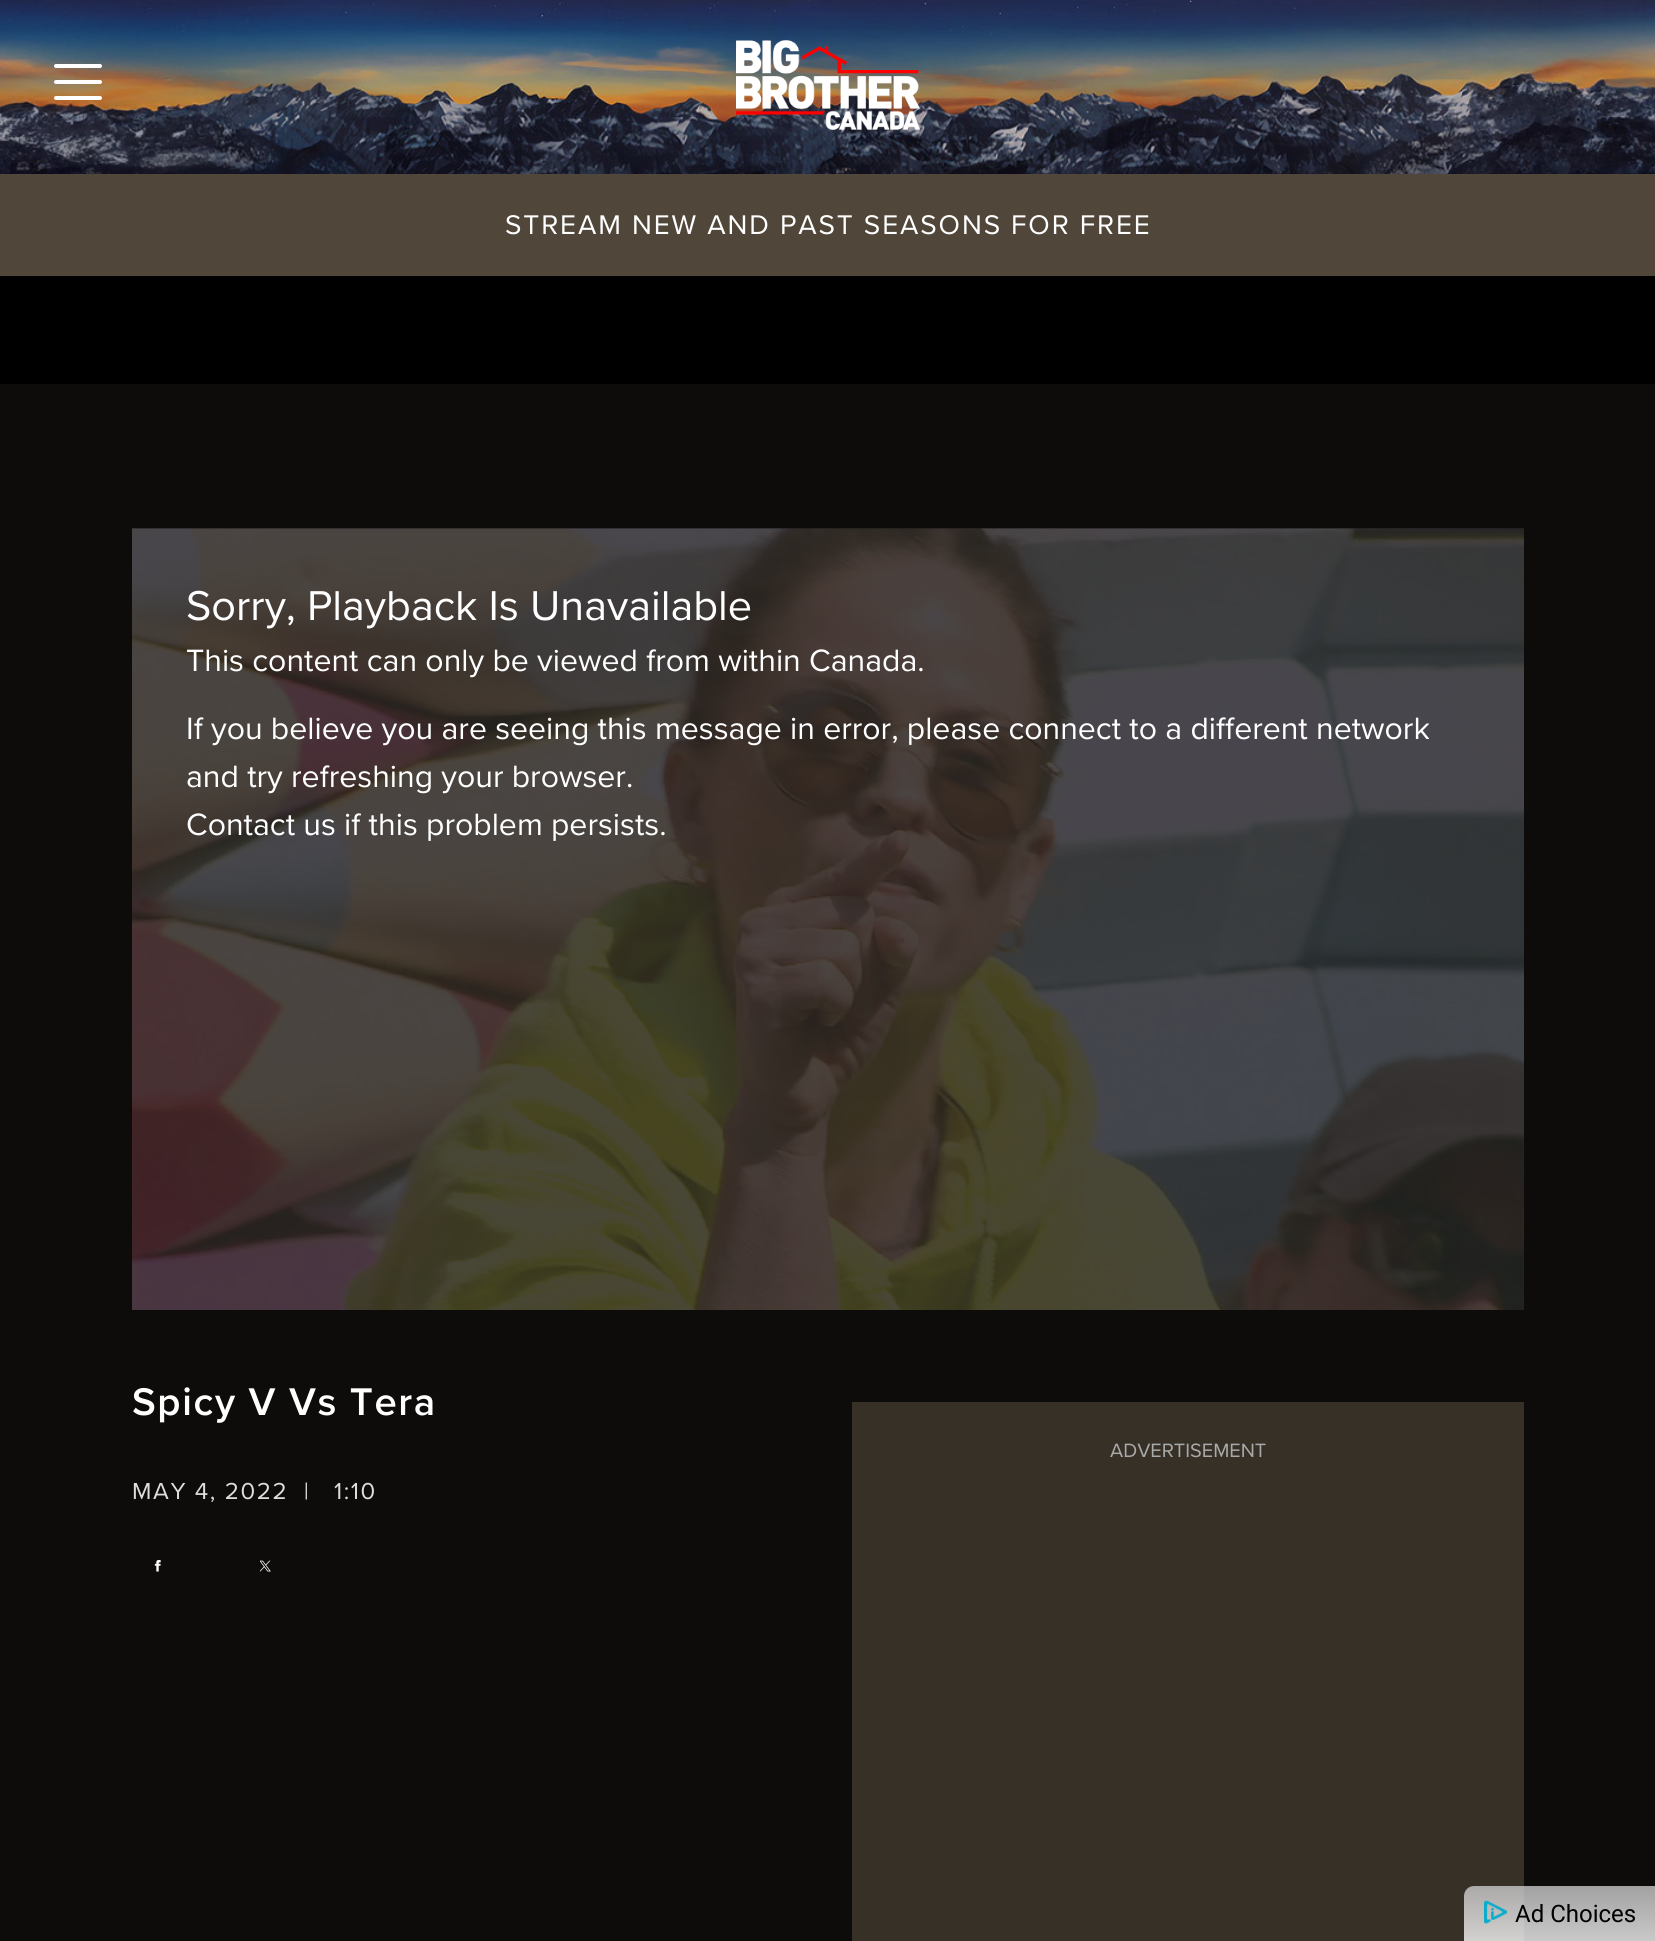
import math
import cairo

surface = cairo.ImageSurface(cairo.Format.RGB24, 1655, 1941)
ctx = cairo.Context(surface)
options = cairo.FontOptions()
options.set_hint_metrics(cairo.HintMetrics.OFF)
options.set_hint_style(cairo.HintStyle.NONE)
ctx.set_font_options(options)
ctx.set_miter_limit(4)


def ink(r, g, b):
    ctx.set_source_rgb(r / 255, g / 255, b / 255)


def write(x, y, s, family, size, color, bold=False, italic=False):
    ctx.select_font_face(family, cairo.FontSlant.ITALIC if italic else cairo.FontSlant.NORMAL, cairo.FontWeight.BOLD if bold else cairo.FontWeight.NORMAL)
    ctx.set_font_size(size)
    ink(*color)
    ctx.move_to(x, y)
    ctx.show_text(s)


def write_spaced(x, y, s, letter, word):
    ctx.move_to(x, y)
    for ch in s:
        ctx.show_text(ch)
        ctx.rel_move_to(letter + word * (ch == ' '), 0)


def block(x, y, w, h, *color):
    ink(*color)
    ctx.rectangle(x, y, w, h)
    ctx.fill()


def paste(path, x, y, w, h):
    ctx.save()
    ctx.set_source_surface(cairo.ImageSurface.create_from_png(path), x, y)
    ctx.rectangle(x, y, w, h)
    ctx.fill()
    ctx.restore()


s1 = dict(family="Proxima Nova", size=43.25, color=(255, 255, 255))
s2 = dict(family="Proxima Nova", size=32, color=(255, 255, 255))
s3 = dict(family="Proxima Nova", size=20, color=(170, 170, 170))
s4 = dict(family="Roboto", size=24, color=(0, 0, 0))

ink(13, 12, 10)
ctx.paint()
block(132, 528, 1392, 1, 29, 29, 28)
paste("pic1.png", 0, 0, 1655, 174)
ctx.new_path()
ctx.move_to(56, 66)
ctx.line_to(100, 66)
ctx.move_to(56, 82)
ctx.line_to(100, 82)
ctx.move_to(56, 98)
ctx.line_to(100, 98)
ink(255, 255, 255)
ctx.set_line_width(4)
ctx.set_line_cap(cairo.LineCap.ROUND)
ctx.stroke()
paste("pic2.png", 736, 40, 184, 90)
block(0, 174, 1655, 102, 80, 71, 58)
ctx.select_font_face("Proxima Nova")
ctx.set_font_size(28)
ink(255, 255, 255)
write_spaced(505, 234, "STREAM NEW AND PAST SEASONS FOR FREE", 1.9, 0)
block(0, 276, 1655, 108, 0, 0, 0)
paste("pic3.png", 132, 528, 1392, 782)
write(186, 620, "Sorry, Playback Is Unavailable", **s1)
write(186, 671, "This content can only be viewed from within Canada.", **s2)
write(186, 739, "If you believe you are seeing this message in error, please connect to a different network", **s2)
write(186, 787, "and try refreshing your browser.", **s2)
write(186, 835, "Contact us if this problem persists.", **s2)
ctx.select_font_face("Proxima Nova SemiBold")
ctx.set_font_size(40)
write_spaced(132, 1415, "Spicy V Vs Tera", 1.6, 0)
ctx.select_font_face("Proxima Nova")
ctx.set_font_size(24)
ink(221, 221, 221)
write_spaced(132, 1499, "MAY 4, 2022  |", 1.6, 0)
write_spaced(334, 1499, "1:10", 1.6, 0)
paste("pic4.png", 154, 1560, 7, 12)
paste("pic5.png", 260, 1560, 11, 12)
block(852, 1402, 672, 539, 54, 48, 39)
write(1110, 1457, "ADVERTISEMENT", **s3)
gradient = cairo.LinearGradient(1560, 1886, 1560, 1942)
gradient.add_color_stop_rgba(0, 0.784, 0.784, 0.784, 0.8)
gradient.add_color_stop_rgba(1, 0.98, 0.98, 0.98, 0.8)
ctx.set_source(gradient)
ctx.new_path()
ctx.move_to(1474, 1886)
ctx.line_to(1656, 1886)
ctx.line_to(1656, 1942)
ctx.line_to(1464, 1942)
ctx.line_to(1464, 1896)
ctx.curve_to(1464, 1890.5, 1468.5, 1886, 1474, 1886)
ctx.close_path()
ctx.fill()
paste("pic6.png", 1484, 1900, 24, 24)
write(1515, 1922, "Ad Choices", **s4)
surface.write_to_png("screenshot.png")
